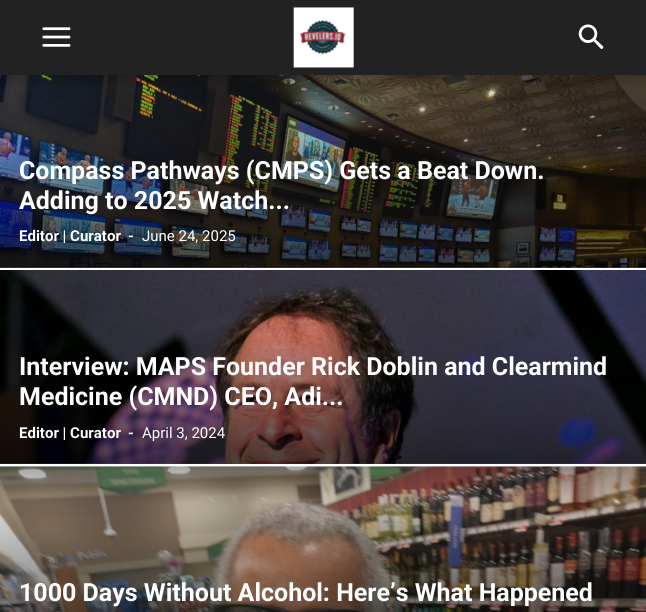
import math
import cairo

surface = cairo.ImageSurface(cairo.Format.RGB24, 646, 612)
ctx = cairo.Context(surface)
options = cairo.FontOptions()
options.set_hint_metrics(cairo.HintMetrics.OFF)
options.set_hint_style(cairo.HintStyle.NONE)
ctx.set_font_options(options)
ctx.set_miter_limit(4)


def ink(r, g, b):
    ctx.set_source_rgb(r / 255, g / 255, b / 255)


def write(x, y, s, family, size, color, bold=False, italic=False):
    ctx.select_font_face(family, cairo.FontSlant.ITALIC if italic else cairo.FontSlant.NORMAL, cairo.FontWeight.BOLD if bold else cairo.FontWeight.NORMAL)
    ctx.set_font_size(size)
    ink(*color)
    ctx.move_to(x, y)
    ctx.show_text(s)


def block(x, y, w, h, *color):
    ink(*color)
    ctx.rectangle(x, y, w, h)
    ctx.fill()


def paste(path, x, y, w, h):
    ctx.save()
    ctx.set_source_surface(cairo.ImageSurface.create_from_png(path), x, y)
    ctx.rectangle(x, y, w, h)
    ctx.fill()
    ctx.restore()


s1 = dict(family="Roboto", size=25, color=(255, 255, 255), bold=True)
s2 = dict(family="Roboto", size=15, color=(255, 255, 255), bold=True)
s3 = dict(family="Roboto", size=15, color=(255, 255, 255))

ink(255, 255, 255)
ctx.paint()
block(0, 0, 646, 75, 34, 34, 34)
paste("pic1.png", 42, 27, 29, 20)
paste("pic2.png", 293, 7, 61, 61)
paste("pic3.png", 578, 24, 26, 25)
paste("pic4.png", 0, 75, 646, 193)
gradient = cairo.LinearGradient(420, 74, 420, 268)
gradient.add_color_stop_rgba(0, 0, 0, 0, 0)
gradient.add_color_stop_rgba(1, 0, 0, 0, 0.7)
ctx.set_source(gradient)
ctx.rectangle(0, 80, 646, 188)
ctx.fill()
write(19, 179, "Compass Pathways (CMPS) Gets a Beat Down.", **s1)
write(19, 209, "Adding to 2025 Watch...", **s1)
write(19, 241, "Editor | Curator", **s2)
write(128, 241, "-", **s2)
write(142, 241, "June 24, 2025", **s3)
paste("pic5.png", 0, 270, 646, 194)
gradient = cairo.LinearGradient(420, 270, 420, 464)
gradient.add_color_stop_rgba(0, 0, 0, 0, 0)
gradient.add_color_stop_rgba(1, 0, 0, 0, 0.7)
ctx.set_source(gradient)
ctx.rectangle(0, 278, 646, 186)
ctx.fill()
write(19, 375, "Interview: MAPS Founder Rick Doblin and Clearmind", **s1)
write(19, 405, "Medicine (CMND) CEO, Adi...", **s1)
write(19, 438, "Editor | Curator", **s2)
write(128, 438, "-", **s2)
write(142, 438, "April 3, 2024", **s3)
paste("pic6.png", 0, 466, 646, 146)
gradient = cairo.LinearGradient(420, 466, 420, 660)
gradient.add_color_stop_rgba(0, 0, 0, 0, 0)
gradient.add_color_stop_rgba(1, 0, 0, 0, 0.7)
ctx.set_source(gradient)
ctx.rectangle(0, 472, 646, 140)
ctx.fill()
write(19, 601, "1000 Days Without Alcohol: Here’s What Happened", **s1)
surface.write_to_png("screenshot.png")
